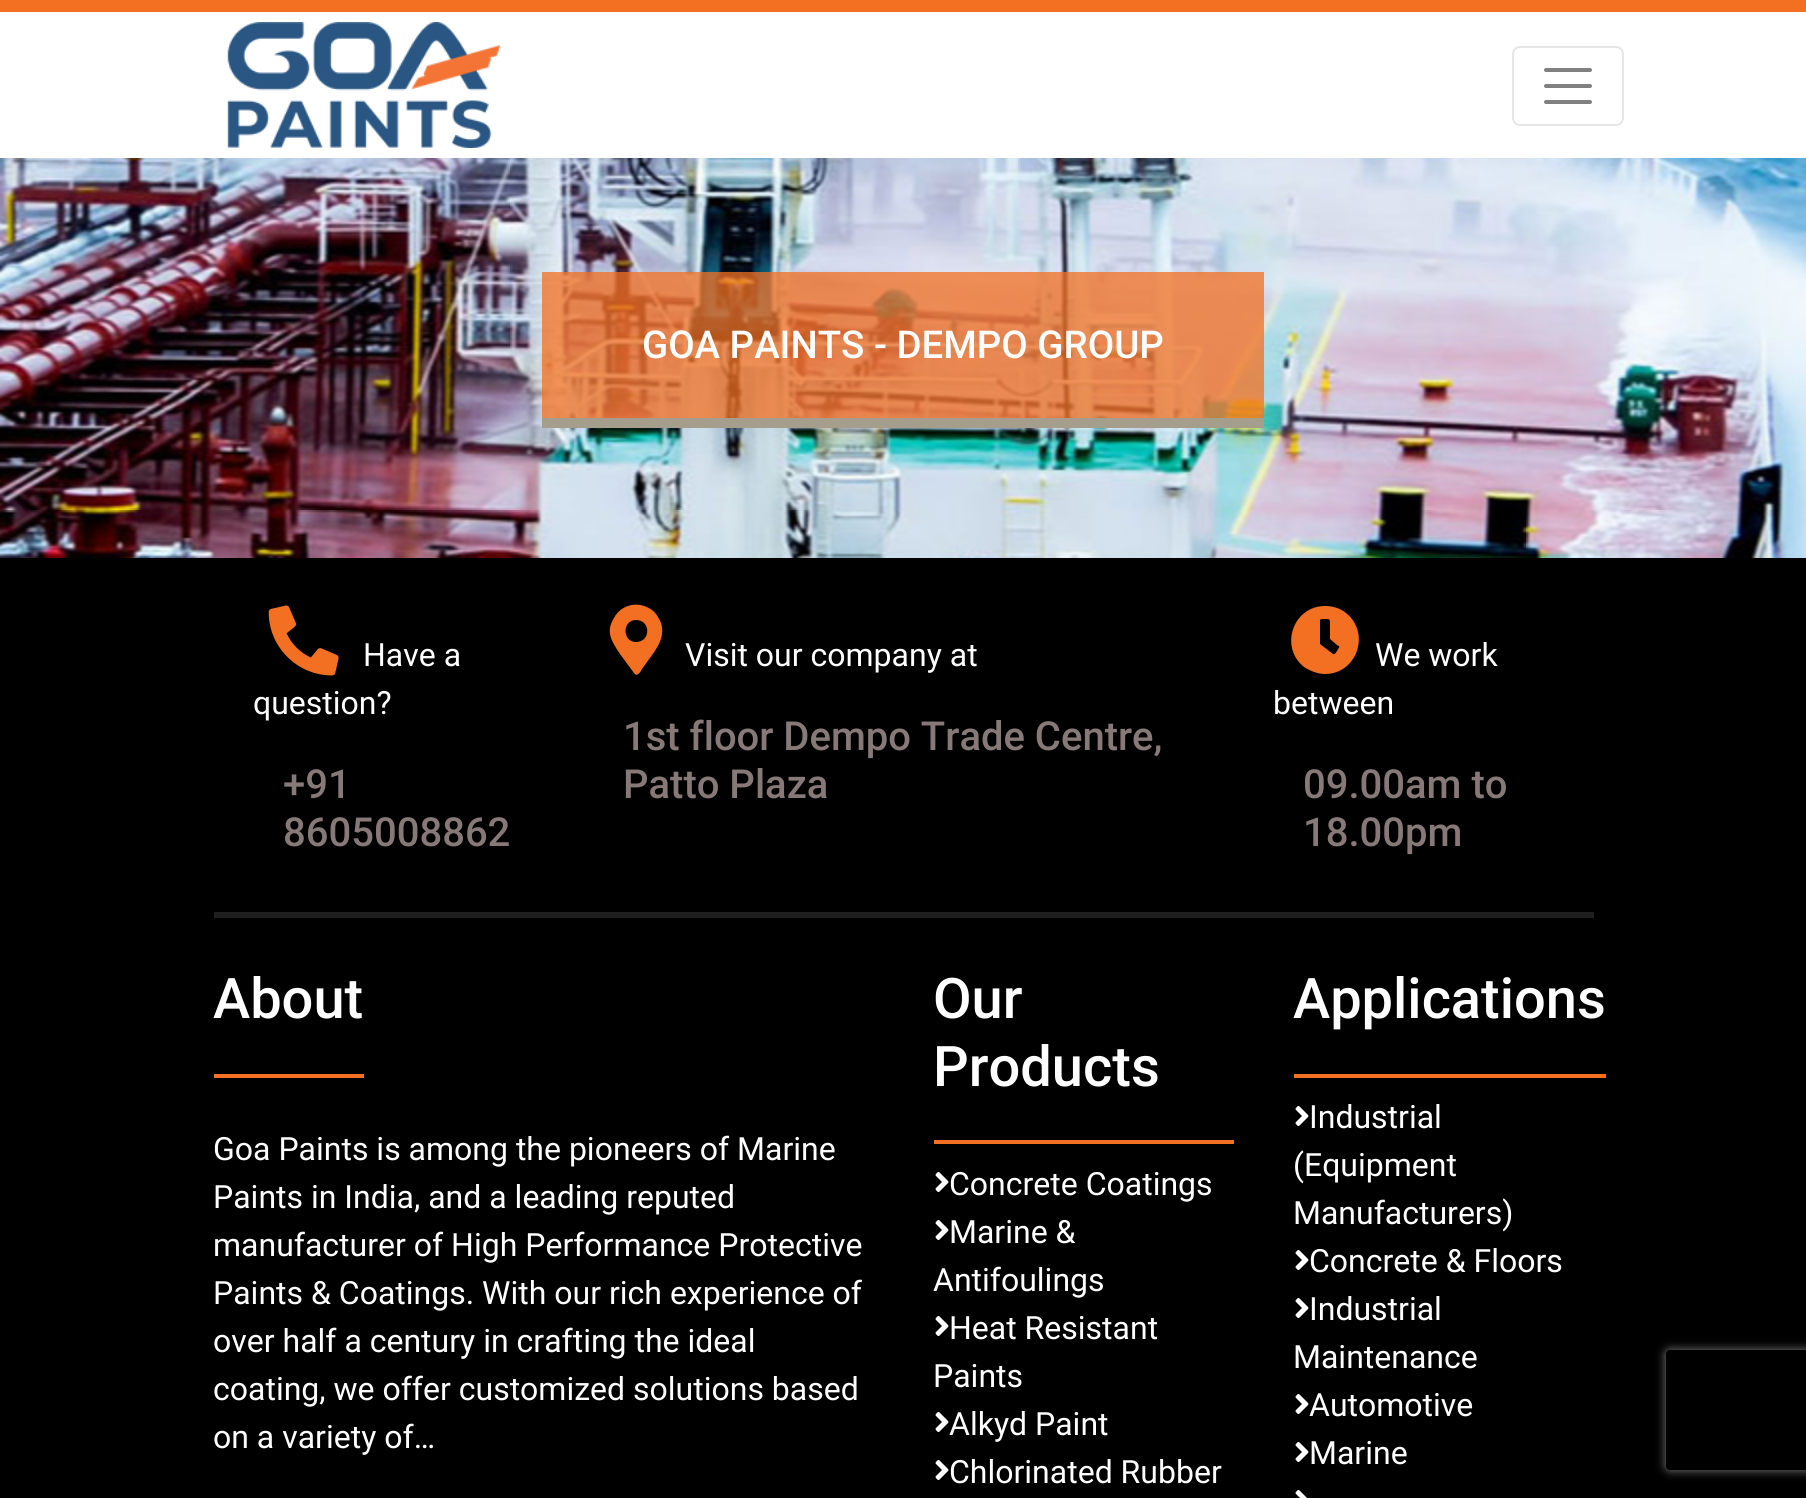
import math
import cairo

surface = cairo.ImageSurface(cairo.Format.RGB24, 1806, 1498)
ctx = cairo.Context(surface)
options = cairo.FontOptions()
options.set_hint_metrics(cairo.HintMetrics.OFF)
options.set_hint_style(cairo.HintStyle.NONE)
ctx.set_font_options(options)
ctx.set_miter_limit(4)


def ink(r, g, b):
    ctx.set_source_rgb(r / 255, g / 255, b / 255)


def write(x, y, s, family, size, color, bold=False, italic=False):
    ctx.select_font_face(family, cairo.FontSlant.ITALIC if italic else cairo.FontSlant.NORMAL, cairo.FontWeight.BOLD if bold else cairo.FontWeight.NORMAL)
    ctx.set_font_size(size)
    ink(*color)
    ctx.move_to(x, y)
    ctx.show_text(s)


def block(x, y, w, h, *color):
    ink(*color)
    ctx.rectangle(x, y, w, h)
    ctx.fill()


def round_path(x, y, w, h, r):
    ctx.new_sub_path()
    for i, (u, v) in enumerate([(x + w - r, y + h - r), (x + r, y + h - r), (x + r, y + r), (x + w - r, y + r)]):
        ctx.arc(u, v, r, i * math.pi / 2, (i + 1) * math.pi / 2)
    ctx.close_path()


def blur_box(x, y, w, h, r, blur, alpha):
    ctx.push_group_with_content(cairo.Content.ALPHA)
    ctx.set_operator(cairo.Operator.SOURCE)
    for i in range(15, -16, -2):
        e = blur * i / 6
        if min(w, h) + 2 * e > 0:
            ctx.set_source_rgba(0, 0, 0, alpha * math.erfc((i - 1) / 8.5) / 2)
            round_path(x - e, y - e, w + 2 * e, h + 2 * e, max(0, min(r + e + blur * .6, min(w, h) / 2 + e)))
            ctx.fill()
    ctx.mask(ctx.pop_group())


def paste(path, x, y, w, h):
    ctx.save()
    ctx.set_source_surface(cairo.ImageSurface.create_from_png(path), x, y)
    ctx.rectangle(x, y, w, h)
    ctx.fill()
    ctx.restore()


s1 = dict(family="Roboto Medium", size=38.4, color=(255, 255, 255))
s2 = dict(family="Roboto", size=32, color=(255, 255, 255))
s3 = dict(family="Roboto Medium", size=40, color=(136, 121, 121))
s4 = dict(family="Roboto Medium", size=56, color=(255, 255, 255))

ink(255, 255, 255)
ctx.paint()
block(0, 0, 1806, 12, 243, 112, 34)
paste("pic1.png", 227, 22, 274, 126)
round_path(1513, 47, 110, 78, 7)
ink(230, 230, 230)
ctx.stroke()
ctx.new_path()
ctx.move_to(1546, 70)
ctx.line_to(1590, 70)
ctx.move_to(1546, 86)
ctx.line_to(1590, 86)
ctx.move_to(1546, 102)
ctx.line_to(1590, 102)
ink(128, 128, 128)
ctx.set_line_width(4)
ctx.set_line_cap(cairo.LineCap.ROUND)
ctx.stroke()
paste("pic2.png", 0, 158, 1806, 400)
ctx.set_source_rgba(0.953, 0.439, 0.133, 0.75)
ctx.rectangle(542, 272, 722, 146)
ctx.fill()
block(542, 418, 722, 10, 165, 158, 141)
write(642, 358, "GOA PAINTS - DEMPO GROUP", **s1)
block(0, 558, 1806, 940, 0, 0, 0)
paste("pic3.png", 268, 605, 71, 71)
write(363, 666, "Have a", **s2)
write(253, 714, "question?", **s2)
write(283, 798, "+91", **s3)
write(283, 846, "8605008862", **s3)
ink(243, 112, 34)
ctx.new_path()
ctx.move_to(634, 673)
ctx.line_to(620, 654)
ctx.curve_to(612, 642, 605, 632, 614, 618)
ctx.curve_to(617, 612, 622, 608, 628, 606)
ctx.curve_to(636, 603, 645, 605, 652, 610)
ctx.curve_to(656, 613, 659, 618, 661, 623)
ctx.curve_to(666, 638, 655, 651, 647, 662)
ctx.line_to(642, 669)
ctx.curve_to(641, 671, 637, 678, 634, 673)
ctx.close_path()
ctx.move_to(636, 642)
ctx.curve_to(651, 642, 651, 620, 636, 620)
ctx.curve_to(622, 620, 622, 642, 636, 642)
ctx.close_path()
ctx.fill()
write(685, 666, "Visit our company at", **s2)
write(623, 750, "1st floor Dempo Trade Centre,", **s3)
write(623, 798, "Patto Plaza", **s3)
ink(243, 112, 34)
ctx.new_path()
ctx.move_to(1325, 606)
ctx.curve_to(1293, 606, 1279, 647, 1304, 667)
ctx.curve_to(1310, 671, 1318, 674, 1325, 674)
ctx.curve_to(1357, 674, 1371, 633, 1346, 613)
ctx.curve_to(1340, 608, 1332, 606, 1325, 606)
ctx.close_path()
ctx.move_to(1333, 654)
ctx.line_to(1320, 644)
ctx.line_to(1320, 624)
ctx.curve_to(1320, 619, 1319, 619, 1325, 619)
ctx.curve_to(1330, 619, 1330, 619, 1330, 624)
ctx.line_to(1330, 639)
ctx.line_to(1337, 645)
ctx.curve_to(1341, 647, 1339, 647, 1337, 651)
ctx.curve_to(1336, 652, 1335, 655, 1333, 654)
ctx.close_path()
ctx.fill()
write(1375, 666, "We work", **s2)
write(1273, 714, "between", **s2)
write(1303, 798, "09.00am to", **s3)
write(1303, 846, "18.00pm", **s3)
block(214, 912, 1380, 6, 31, 31, 31)
block(214, 1074, 150, 4, 243, 112, 34)
write(213, 1018, "About", **s4)
write(213, 1160, "Goa Paints is among the pioneers of Marine", **s2)
write(213, 1208, "Paints in India, and a leading reputed", **s2)
write(213, 1256, "manufacturer of High Performance Protective", **s2)
write(213, 1304, "Paints & Coatings. With our rich experience of", **s2)
write(213, 1352, "over half a century in crafting the ideal", **s2)
write(213, 1400, "coating, we offer customized solutions based", **s2)
write(213, 1448, "on a variety of…", **s2)
block(934, 1140, 300, 4, 243, 112, 34)
write(933, 1018, "Our", **s4)
write(933, 1086, "Products", **s4)
paste("pic4.png", 935, 1172, 14, 20)
write(949, 1195, "Concrete Coatings", **s2)
paste("pic4.png", 935, 1220, 14, 20)
write(949, 1243, "Marine &", **s2)
write(933, 1291, "Antifoulings", **s2)
paste("pic4.png", 935, 1316, 14, 20)
write(949, 1339, "Heat Resistant", **s2)
write(933, 1387, "Paints", **s2)
paste("pic4.png", 935, 1412, 14, 20)
write(949, 1435, "Alkyd Paint", **s2)
paste("pic4.png", 935, 1460, 14, 20)
write(949, 1483, "Chlorinated Rubber", **s2)
block(1294, 1074, 312, 4, 243, 112, 34)
write(1293, 1018, "Applications", **s4)
paste("pic4.png", 1295, 1106, 14, 20)
write(1309, 1128, "Industrial", **s2)
write(1293, 1176, "(Equipment", **s2)
write(1293, 1224, "Manufacturers)", **s2)
paste("pic4.png", 1295, 1250, 14, 20)
write(1309, 1272, "Concrete & Floors", **s2)
paste("pic4.png", 1295, 1298, 14, 20)
write(1309, 1320, "Industrial", **s2)
write(1293, 1368, "Maintenance", **s2)
paste("pic4.png", 1295, 1394, 14, 20)
write(1309, 1416, "Automotive", **s2)
paste("pic4.png", 1295, 1442, 14, 20)
write(1309, 1464, "Marine", **s2)
paste("pic5.png", 1295, 1490, 12, 8)
ctx.save()
ctx.set_fill_rule(cairo.FillRule.EVEN_ODD)
ctx.new_path()
ctx.move_to(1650, 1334)
ctx.line_to(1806, 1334)
ctx.line_to(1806, 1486)
ctx.line_to(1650, 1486)
ctx.close_path()
ctx.move_to(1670, 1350)
ctx.line_to(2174, 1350)
ctx.curve_to(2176, 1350, 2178, 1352, 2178, 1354)
ctx.line_to(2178, 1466)
ctx.curve_to(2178, 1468, 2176, 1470, 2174, 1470)
ctx.line_to(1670, 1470)
ctx.curve_to(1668, 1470, 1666, 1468, 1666, 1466)
ctx.line_to(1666, 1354)
ctx.curve_to(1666, 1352, 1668, 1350, 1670, 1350)
ctx.close_path()
ctx.clip()
ink(128, 128, 128)
blur_box(1666, 1350, 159, 120, 4, 5, 1)
ctx.restore()
surface.write_to_png("screenshot.png")
